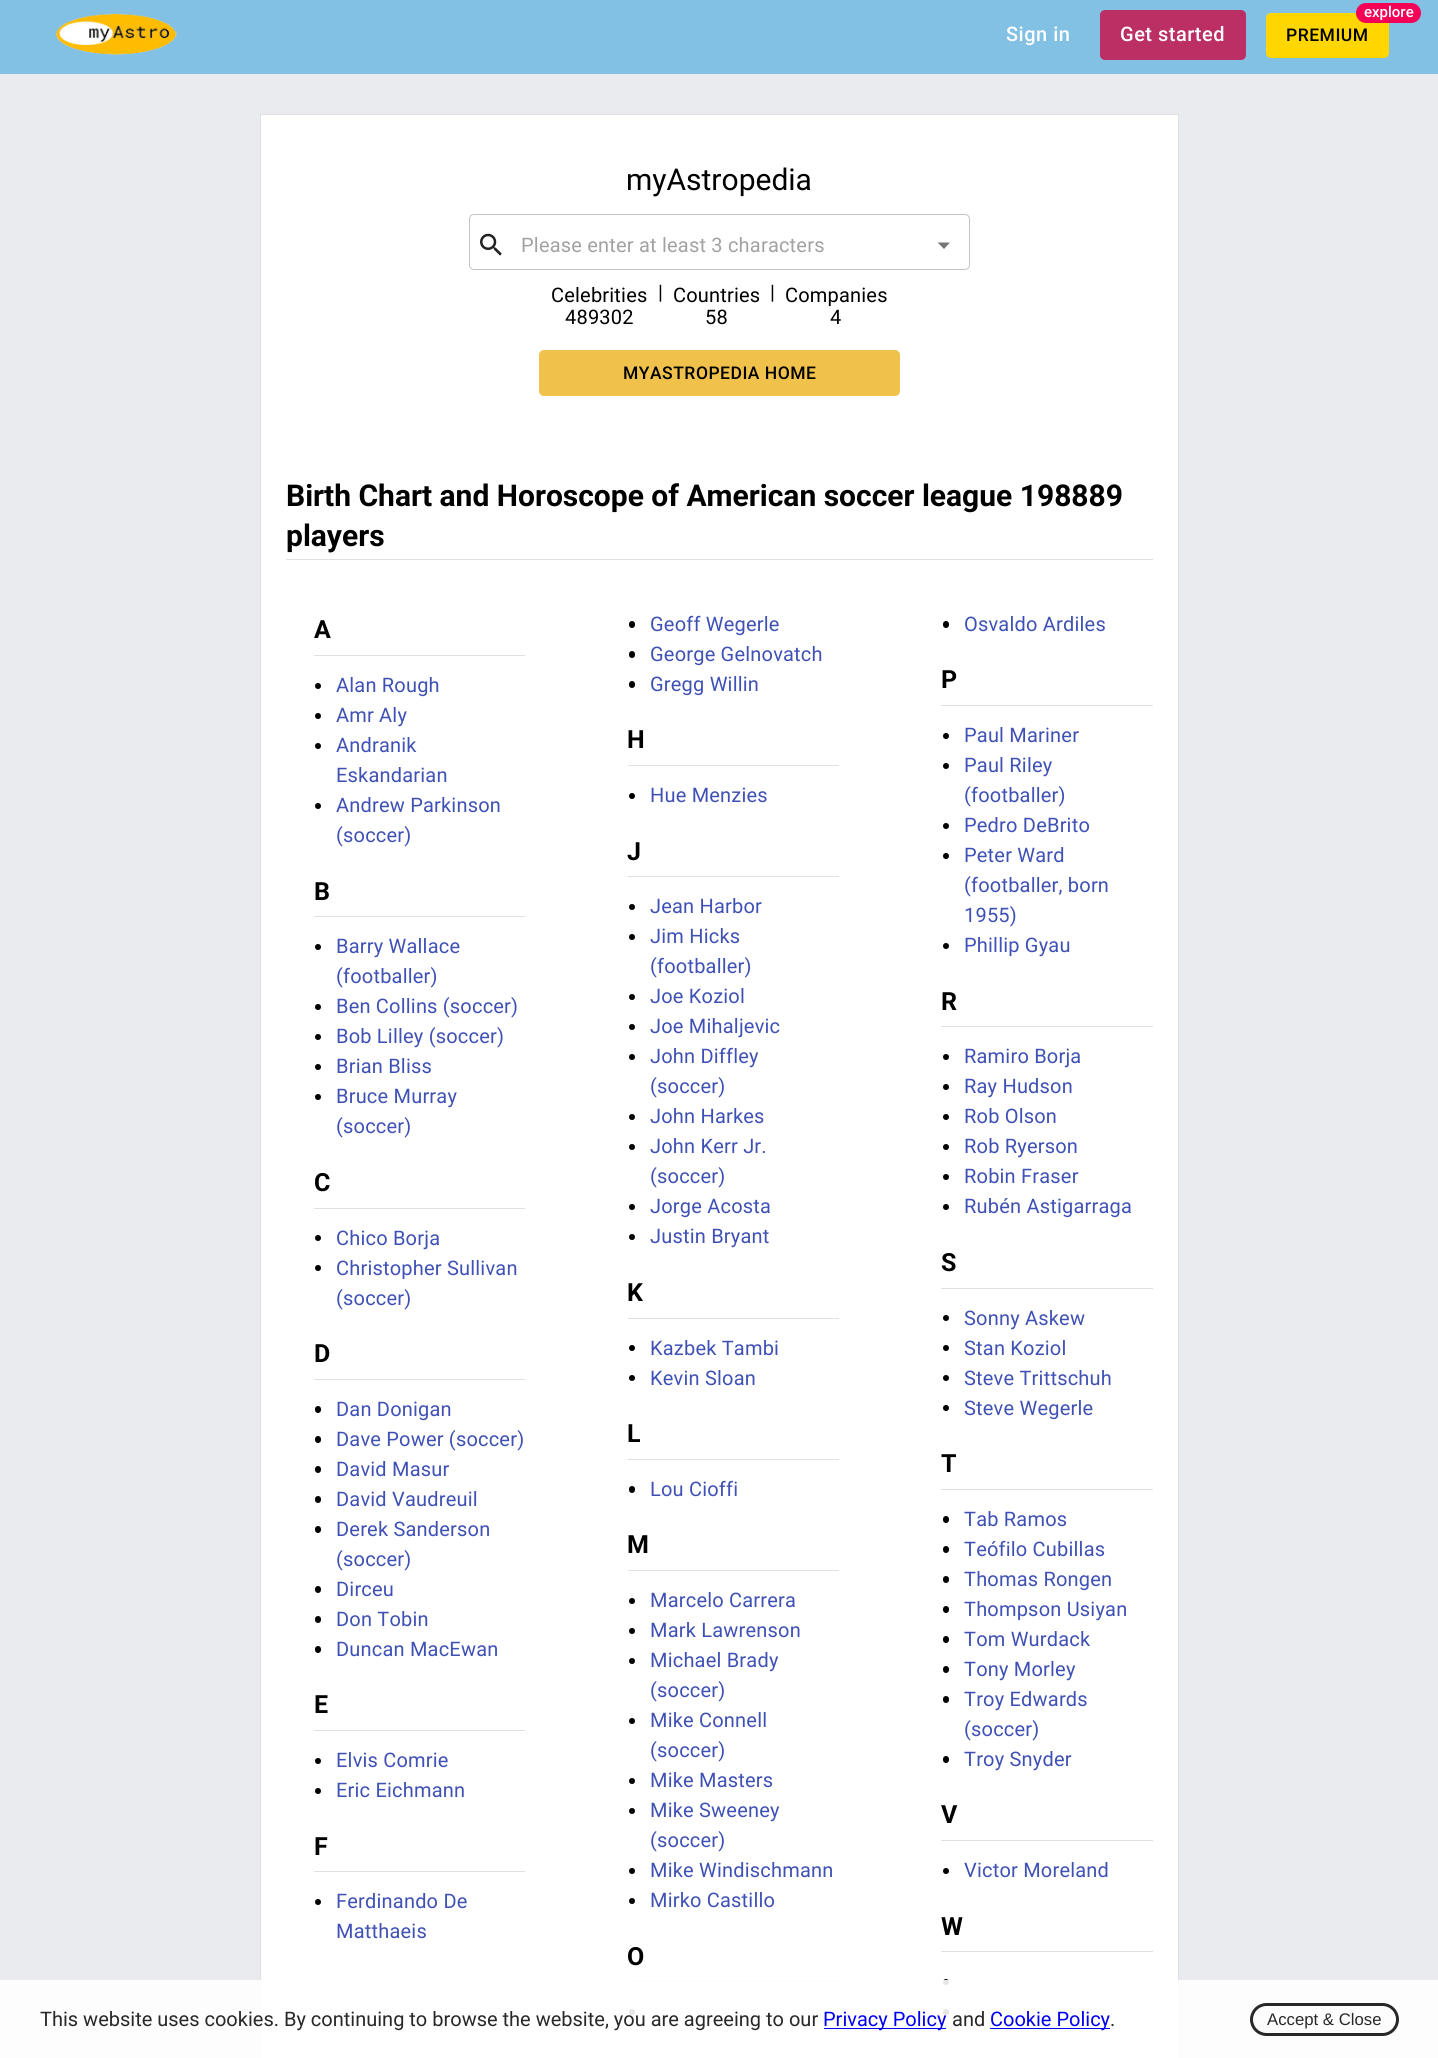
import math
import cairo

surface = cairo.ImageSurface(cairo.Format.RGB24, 1438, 2058)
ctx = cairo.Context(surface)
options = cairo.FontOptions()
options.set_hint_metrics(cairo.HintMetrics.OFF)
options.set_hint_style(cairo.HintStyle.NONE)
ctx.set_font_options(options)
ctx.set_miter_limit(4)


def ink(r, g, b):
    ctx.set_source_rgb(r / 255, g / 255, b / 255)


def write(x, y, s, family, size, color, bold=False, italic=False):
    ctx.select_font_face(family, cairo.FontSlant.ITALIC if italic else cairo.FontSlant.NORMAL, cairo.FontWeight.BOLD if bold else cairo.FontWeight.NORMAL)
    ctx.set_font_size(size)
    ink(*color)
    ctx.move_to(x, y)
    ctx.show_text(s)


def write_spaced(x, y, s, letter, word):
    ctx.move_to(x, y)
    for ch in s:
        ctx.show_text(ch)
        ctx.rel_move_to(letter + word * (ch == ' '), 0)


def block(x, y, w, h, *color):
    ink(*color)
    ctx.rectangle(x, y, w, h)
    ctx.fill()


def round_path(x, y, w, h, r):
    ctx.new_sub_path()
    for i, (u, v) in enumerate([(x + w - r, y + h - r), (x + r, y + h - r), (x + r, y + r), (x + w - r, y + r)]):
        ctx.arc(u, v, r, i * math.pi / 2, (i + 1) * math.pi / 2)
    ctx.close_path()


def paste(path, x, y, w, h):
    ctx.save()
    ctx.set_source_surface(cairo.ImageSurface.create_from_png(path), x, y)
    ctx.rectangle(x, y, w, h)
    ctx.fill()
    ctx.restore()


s1 = dict(family="Roboto Medium", size=15, color=(255, 255, 255))
s2 = dict(family="Roboto", size=30, color=(0, 0, 0))
s3 = dict(family="Roboto", size=20, color=(0, 0, 0))
s4 = dict(family="Roboto", size=30, color=(0, 0, 0), bold=True)
s5 = dict(family="Roboto", size=20, color=(40, 40, 40))
s6 = dict(family="Roboto", size=20, color=(0, 0, 238))
s7 = dict(family="Liberation Sans", size=16.75, color=(40, 40, 40))

ink(234, 235, 239)
ctx.paint()
block(0, 0, 1438, 74, 130, 192, 228)
paste("pic1.png", 55, 13, 122, 42)
ctx.select_font_face("Roboto Medium")
ctx.set_font_size(20)
ink(255, 255, 255)
write_spaced(1006, 41, "Sign in", 0.5, 0)
ink(188, 47, 101)
round_path(1100, 10, 146, 50, 5)
ctx.fill()
ink(255, 255, 255)
write_spaced(1120, 41, "Get started", 0.5, 0)
ink(255, 214, 0)
round_path(1266, 13, 123, 45, 5)
ctx.fill()
ink(245, 0, 87)
round_path(1356, 3, 65, 20, 10)
ctx.fill()
write(1364, 17, "explore", **s1)
ctx.set_font_size(17.5)
ink(0, 0, 0)
write_spaced(1286, 41, "PREMIUM", 0.5, 0)
ink(255, 255, 255)
ctx.rectangle(260.5, 114.5, 918, 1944)
ctx.fill_preserve()
ink(224, 224, 224)
ctx.set_line_width(1)
ctx.stroke()
write(626, 190, "myAstropedia", **s2)
paste("pic2.png", 480, 233, 22, 23)
ink(117, 117, 117)
ctx.new_path()
ctx.move_to(937.5, 242.5)
ctx.line_to(944, 249)
ctx.line_to(950, 242.5)
ctx.close_path()
ctx.fill()
round_path(469.5, 214.5, 500, 55, 4.5)
ink(196, 196, 196)
ctx.stroke()
ctx.set_font_size(20)
ink(162, 162, 162)
write_spaced(521, 252, "Please enter at least 3 characters", 0.2, 0)
ink(0, 0, 0)
write_spaced(551, 302, "Celebrities", 0.2, 0)
write_spaced(565, 324, "489302", 0.2, 0)
write(658, 299, "|", **s3)
write_spaced(673, 302, "Countries", 0.2, 0)
write_spaced(705, 324, "58", 0.2, 0)
write(770, 299, "|", **s3)
write_spaced(785, 302, "Companies", 0.2, 0)
write_spaced(830, 324, "4", 0.2, 0)
ink(240, 193, 75)
round_path(539, 350, 361, 46, 5)
ctx.fill()
ctx.select_font_face("Roboto Medium")
ctx.set_font_size(17.5)
ink(0, 0, 0)
write_spaced(623, 379, "MYASTROPEDIA HOME", 0.5, 0)
write(286, 506, "Birth Chart and Horoscope of American soccer league 198889", **s4)
write(286, 546, "players", **s4)
block(286, 559, 867, 1, 224, 224, 224)
ctx.set_font_size(25)
ink(0, 0, 0)
write_spaced(314, 638, "A", 0.2, 0)
round_path(629, 621, 6, 7, 3)
ctx.fill()
ctx.select_font_face("Roboto")
ctx.set_font_size(20)
ink(63, 81, 181)
write_spaced(650, 631, "Geoff Wegerle", 0.2, 0)
ink(0, 0, 0)
round_path(943, 621, 6, 7, 3)
ctx.fill()
ink(63, 81, 181)
write_spaced(964, 631, "Osvaldo Ardiles", 0.2, 0)
block(314, 655, 211, 1, 224, 224, 224)
ink(0, 0, 0)
round_path(629, 651, 6, 7, 3)
ctx.fill()
ink(63, 81, 181)
write_spaced(650, 661, "George Gelnovatch", 0.2, 0)
ink(0, 0, 0)
ctx.new_path()
ctx.arc(318, 686, 3, 0, 2 * math.pi)
ctx.fill()
ink(63, 81, 181)
write_spaced(336, 692, "Alan Rough", 0.2, 0)
ink(0, 0, 0)
round_path(629, 681, 6, 7, 3)
ctx.fill()
ink(63, 81, 181)
write_spaced(650, 691, "Gregg Willin", 0.2, 0)
ctx.select_font_face("Roboto", cairo.FontSlant.NORMAL, cairo.FontWeight.BOLD)
ctx.set_font_size(25)
ink(0, 0, 0)
write_spaced(941, 688, "P", 0.2, 0)
block(941, 705, 212, 1, 224, 224, 224)
ink(0, 0, 0)
ctx.new_path()
ctx.arc(318, 716, 3, 0, 2 * math.pi)
ctx.fill()
ctx.select_font_face("Roboto")
ctx.set_font_size(20)
ink(63, 81, 181)
write_spaced(336, 722, "Amr Aly", 0.2, 0)
ink(0, 0, 0)
ctx.new_path()
ctx.arc(318, 746, 3, 0, 2 * math.pi)
ctx.fill()
ink(63, 81, 181)
write_spaced(336, 752, "Andranik", 0.2, 0)
write_spaced(336, 782, "Eskandarian", 0.2, 0)
ctx.select_font_face("Roboto", cairo.FontSlant.NORMAL, cairo.FontWeight.BOLD)
ctx.set_font_size(25)
ink(0, 0, 0)
write_spaced(627, 748, "H", 0.2, 0)
ctx.new_path()
ctx.arc(946, 736, 3, 0, 2 * math.pi)
ctx.fill()
ctx.select_font_face("Roboto")
ctx.set_font_size(20)
ink(63, 81, 181)
write_spaced(964, 742, "Paul Mariner", 0.2, 0)
block(628, 765, 211, 1, 224, 224, 224)
ink(0, 0, 0)
ctx.new_path()
ctx.arc(946, 766, 3, 0, 2 * math.pi)
ctx.fill()
ink(63, 81, 181)
write_spaced(964, 772, "Paul Riley", 0.2, 0)
write_spaced(964, 802, "(footballer)", 0.2, 0)
ink(0, 0, 0)
ctx.new_path()
ctx.arc(632, 796, 3, 0, 2 * math.pi)
ctx.fill()
ink(63, 81, 181)
write_spaced(650, 802, "Hue Menzies", 0.2, 0)
ink(0, 0, 0)
ctx.new_path()
ctx.arc(318, 806, 3, 0, 2 * math.pi)
ctx.fill()
ink(63, 81, 181)
write_spaced(336, 812, "Andrew Parkinson", 0.2, 0)
write_spaced(336, 842, "(soccer)", 0.2, 0)
ink(0, 0, 0)
ctx.new_path()
ctx.arc(946, 826, 3, 0, 2 * math.pi)
ctx.fill()
ink(63, 81, 181)
write_spaced(964, 832, "Pedro DeBrito", 0.2, 0)
ctx.select_font_face("Roboto", cairo.FontSlant.NORMAL, cairo.FontWeight.BOLD)
ctx.set_font_size(25)
ink(0, 0, 0)
write_spaced(627, 860, "J", 0.2, 0)
ctx.new_path()
ctx.arc(946, 856, 3, 0, 2 * math.pi)
ctx.fill()
ctx.select_font_face("Roboto")
ctx.set_font_size(20)
ink(63, 81, 181)
write_spaced(964, 862, "Peter Ward", 0.2, 0)
write_spaced(964, 892, "(footballer, born", 0.2, 0)
write_spaced(964, 922, "1955)", 0.2, 0)
block(628, 876, 211, 1, 224, 224, 224)
ctx.select_font_face("Roboto", cairo.FontSlant.NORMAL, cairo.FontWeight.BOLD)
ctx.set_font_size(25)
ink(0, 0, 0)
write_spaced(314, 900, "B", 0.2, 0)
ctx.new_path()
ctx.arc(632, 907, 3, 0, 2 * math.pi)
ctx.fill()
ctx.select_font_face("Roboto")
ctx.set_font_size(20)
ink(63, 81, 181)
write_spaced(650, 913, "Jean Harbor", 0.2, 0)
block(314, 916, 211, 1, 224, 224, 224)
ink(0, 0, 0)
ctx.new_path()
ctx.arc(318, 947, 3, 0, 2 * math.pi)
ctx.fill()
ink(63, 81, 181)
write_spaced(336, 953, "Barry Wallace", 0.2, 0)
write_spaced(336, 983, "(footballer)", 0.2, 0)
ink(0, 0, 0)
ctx.new_path()
ctx.arc(632, 937, 3, 0, 2 * math.pi)
ctx.fill()
ink(63, 81, 181)
write_spaced(650, 943, "Jim Hicks", 0.2, 0)
write_spaced(650, 973, "(footballer)", 0.2, 0)
ink(0, 0, 0)
ctx.new_path()
ctx.arc(946, 946, 3, 0, 2 * math.pi)
ctx.fill()
ink(63, 81, 181)
write_spaced(964, 952, "Phillip Gyau", 0.2, 0)
ink(0, 0, 0)
ctx.new_path()
ctx.arc(318, 1007, 3, 0, 2 * math.pi)
ctx.fill()
ink(63, 81, 181)
write_spaced(336, 1013, "Ben Collins (soccer)", 0.2, 0)
ink(0, 0, 0)
ctx.new_path()
ctx.arc(632, 997, 3, 0, 2 * math.pi)
ctx.fill()
ink(63, 81, 181)
write_spaced(650, 1003, "Joe Koziol", 0.2, 0)
ctx.select_font_face("Roboto", cairo.FontSlant.NORMAL, cairo.FontWeight.BOLD)
ctx.set_font_size(25)
ink(0, 0, 0)
write_spaced(941, 1010, "R", 0.2, 0)
ctx.new_path()
ctx.arc(632, 1027, 3, 0, 2 * math.pi)
ctx.fill()
ctx.select_font_face("Roboto")
ctx.set_font_size(20)
ink(63, 81, 181)
write_spaced(650, 1033, "Joe Mihaljevic", 0.2, 0)
block(941, 1026, 212, 1, 224, 224, 224)
ink(0, 0, 0)
ctx.new_path()
ctx.arc(318, 1037, 3, 0, 2 * math.pi)
ctx.fill()
ink(63, 81, 181)
write_spaced(336, 1043, "Bob Lilley (soccer)", 0.2, 0)
ink(0, 0, 0)
ctx.new_path()
ctx.arc(318, 1067, 3, 0, 2 * math.pi)
ctx.fill()
ink(63, 81, 181)
write_spaced(336, 1073, "Brian Bliss", 0.2, 0)
ink(0, 0, 0)
ctx.new_path()
ctx.arc(632, 1057, 3, 0, 2 * math.pi)
ctx.fill()
ink(63, 81, 181)
write_spaced(650, 1063, "John Diffley", 0.2, 0)
write_spaced(650, 1093, "(soccer)", 0.2, 0)
ink(0, 0, 0)
ctx.new_path()
ctx.arc(946, 1057, 3, 0, 2 * math.pi)
ctx.fill()
ink(63, 81, 181)
write_spaced(964, 1063, "Ramiro Borja", 0.2, 0)
ink(0, 0, 0)
ctx.new_path()
ctx.arc(318, 1097, 3, 0, 2 * math.pi)
ctx.fill()
ink(63, 81, 181)
write_spaced(336, 1103, "Bruce Murray", 0.2, 0)
write_spaced(336, 1133, "(soccer)", 0.2, 0)
ink(0, 0, 0)
ctx.new_path()
ctx.arc(632, 1117, 3, 0, 2 * math.pi)
ctx.fill()
ink(63, 81, 181)
write_spaced(650, 1123, "John Harkes", 0.2, 0)
ink(0, 0, 0)
ctx.new_path()
ctx.arc(946, 1087, 3, 0, 2 * math.pi)
ctx.fill()
ink(63, 81, 181)
write_spaced(964, 1093, "Ray Hudson", 0.2, 0)
ink(0, 0, 0)
ctx.new_path()
ctx.arc(946, 1117, 3, 0, 2 * math.pi)
ctx.fill()
ink(63, 81, 181)
write_spaced(964, 1123, "Rob Olson", 0.2, 0)
ink(0, 0, 0)
ctx.new_path()
ctx.arc(632, 1147, 3, 0, 2 * math.pi)
ctx.fill()
ink(63, 81, 181)
write_spaced(650, 1153, "John Kerr Jr.", 0.2, 0)
write_spaced(650, 1183, "(soccer)", 0.2, 0)
ink(0, 0, 0)
ctx.new_path()
ctx.arc(946, 1147, 3, 0, 2 * math.pi)
ctx.fill()
ink(63, 81, 181)
write_spaced(964, 1153, "Rob Ryerson", 0.2, 0)
ctx.select_font_face("Roboto", cairo.FontSlant.NORMAL, cairo.FontWeight.BOLD)
ctx.set_font_size(25)
ink(0, 0, 0)
write_spaced(314, 1191, "C", 0.2, 0)
ctx.new_path()
ctx.arc(946, 1177, 3, 0, 2 * math.pi)
ctx.fill()
ctx.select_font_face("Roboto")
ctx.set_font_size(20)
ink(63, 81, 181)
write_spaced(964, 1183, "Robin Fraser", 0.2, 0)
block(314, 1208, 211, 1, 224, 224, 224)
ink(0, 0, 0)
ctx.new_path()
ctx.arc(632, 1207, 3, 0, 2 * math.pi)
ctx.fill()
ink(63, 81, 181)
write_spaced(650, 1213, "Jorge Acosta", 0.2, 0)
ink(0, 0, 0)
ctx.new_path()
ctx.arc(946, 1207, 3, 0, 2 * math.pi)
ctx.fill()
ink(63, 81, 181)
write_spaced(964, 1213, "Rubén Astigarraga", 0.2, 0)
ink(0, 0, 0)
ctx.new_path()
ctx.arc(318, 1238, 3, 0, 2 * math.pi)
ctx.fill()
ink(63, 81, 181)
write_spaced(336, 1245, "Chico Borja", 0.2, 0)
ink(0, 0, 0)
ctx.new_path()
ctx.arc(632, 1237, 3, 0, 2 * math.pi)
ctx.fill()
ink(63, 81, 181)
write_spaced(650, 1243, "Justin Bryant", 0.2, 0)
ink(0, 0, 0)
ctx.new_path()
ctx.arc(318, 1268, 3, 0, 2 * math.pi)
ctx.fill()
ink(63, 81, 181)
write_spaced(336, 1275, "Christopher Sullivan", 0.2, 0)
write_spaced(336, 1305, "(soccer)", 0.2, 0)
ctx.select_font_face("Roboto", cairo.FontSlant.NORMAL, cairo.FontWeight.BOLD)
ctx.set_font_size(25)
ink(0, 0, 0)
write_spaced(627, 1301, "K", 0.2, 0)
write_spaced(941, 1271, "S", 0.2, 0)
block(941, 1288, 212, 1, 224, 224, 224)
block(628, 1318, 211, 1, 224, 224, 224)
ink(0, 0, 0)
ctx.new_path()
ctx.arc(946, 1318, 3, 0, 2 * math.pi)
ctx.fill()
ctx.select_font_face("Roboto")
ctx.set_font_size(20)
ink(63, 81, 181)
write_spaced(964, 1325, "Sonny Askew", 0.2, 0)
ctx.select_font_face("Roboto", cairo.FontSlant.NORMAL, cairo.FontWeight.BOLD)
ctx.set_font_size(25)
ink(0, 0, 0)
write_spaced(314, 1362, "D", 0.2, 0)
ctx.new_path()
ctx.arc(632, 1348, 3, 0, 2 * math.pi)
ctx.fill()
ctx.select_font_face("Roboto")
ctx.set_font_size(20)
ink(63, 81, 181)
write_spaced(650, 1355, "Kazbek Tambi", 0.2, 0)
ink(0, 0, 0)
ctx.new_path()
ctx.arc(946, 1348, 3, 0, 2 * math.pi)
ctx.fill()
ink(63, 81, 181)
write_spaced(964, 1355, "Stan Koziol", 0.2, 0)
block(314, 1379, 211, 1, 224, 224, 224)
ink(0, 0, 0)
ctx.new_path()
ctx.arc(632, 1378, 3, 0, 2 * math.pi)
ctx.fill()
ink(63, 81, 181)
write_spaced(650, 1385, "Kevin Sloan", 0.2, 0)
ink(0, 0, 0)
ctx.new_path()
ctx.arc(946, 1378, 3, 0, 2 * math.pi)
ctx.fill()
ink(63, 81, 181)
write_spaced(964, 1385, "Steve Trittschuh", 0.2, 0)
ink(0, 0, 0)
round_path(315, 1406, 6, 7, 3)
ctx.fill()
ink(63, 81, 181)
write_spaced(336, 1416, "Dan Donigan", 0.2, 0)
ink(0, 0, 0)
ctx.new_path()
ctx.arc(946, 1408, 3, 0, 2 * math.pi)
ctx.fill()
ink(63, 81, 181)
write_spaced(964, 1415, "Steve Wegerle", 0.2, 0)
ink(0, 0, 0)
round_path(315, 1436, 6, 7, 3)
ctx.fill()
ink(63, 81, 181)
write_spaced(336, 1446, "Dave Power (soccer)", 0.2, 0)
ctx.select_font_face("Roboto", cairo.FontSlant.NORMAL, cairo.FontWeight.BOLD)
ctx.set_font_size(25)
ink(0, 0, 0)
write_spaced(627, 1442, "L", 0.2, 0)
block(628, 1459, 211, 1, 224, 224, 224)
ink(0, 0, 0)
write_spaced(941, 1472, "T", 0.2, 0)
round_path(315, 1466, 6, 7, 3)
ctx.fill()
ctx.select_font_face("Roboto")
ctx.set_font_size(20)
ink(63, 81, 181)
write_spaced(336, 1476, "David Masur", 0.2, 0)
ink(0, 0, 0)
round_path(629, 1486, 6, 7, 3)
ctx.fill()
ink(63, 81, 181)
write_spaced(650, 1496, "Lou Cioffi", 0.2, 0)
block(941, 1489, 212, 1, 224, 224, 224)
ink(0, 0, 0)
round_path(315, 1496, 6, 7, 3)
ctx.fill()
ink(63, 81, 181)
write_spaced(336, 1506, "David Vaudreuil", 0.2, 0)
ink(0, 0, 0)
round_path(943, 1516, 6, 7, 3)
ctx.fill()
ink(63, 81, 181)
write_spaced(964, 1526, "Tab Ramos", 0.2, 0)
ink(0, 0, 0)
round_path(315, 1526, 6, 7, 3)
ctx.fill()
ink(63, 81, 181)
write_spaced(336, 1536, "Derek Sanderson", 0.2, 0)
write_spaced(336, 1566, "(soccer)", 0.2, 0)
ctx.select_font_face("Roboto", cairo.FontSlant.NORMAL, cairo.FontWeight.BOLD)
ctx.set_font_size(25)
ink(0, 0, 0)
write_spaced(627, 1553, "M", 0.2, 0)
round_path(943, 1546, 6, 7, 3)
ctx.fill()
ctx.select_font_face("Roboto")
ctx.set_font_size(20)
ink(63, 81, 181)
write_spaced(964, 1556, "Teófilo Cubillas", 0.2, 0)
block(628, 1570, 211, 1, 224, 224, 224)
ink(0, 0, 0)
round_path(315, 1586, 6, 7, 3)
ctx.fill()
ink(63, 81, 181)
write_spaced(336, 1596, "Dirceu", 0.2, 0)
ink(0, 0, 0)
round_path(943, 1576, 6, 7, 3)
ctx.fill()
ink(63, 81, 181)
write_spaced(964, 1586, "Thomas Rongen", 0.2, 0)
ink(0, 0, 0)
round_path(315, 1616, 6, 7, 3)
ctx.fill()
ink(63, 81, 181)
write_spaced(336, 1626, "Don Tobin", 0.2, 0)
ink(0, 0, 0)
ctx.new_path()
ctx.arc(632, 1601, 3, 0, 2 * math.pi)
ctx.fill()
ink(63, 81, 181)
write_spaced(650, 1607, "Marcelo Carrera", 0.2, 0)
ink(0, 0, 0)
round_path(943, 1606, 6, 7, 3)
ctx.fill()
ink(63, 81, 181)
write_spaced(964, 1616, "Thompson Usiyan", 0.2, 0)
ink(0, 0, 0)
ctx.new_path()
ctx.arc(632, 1631, 3, 0, 2 * math.pi)
ctx.fill()
ink(63, 81, 181)
write_spaced(650, 1637, "Mark Lawrenson", 0.2, 0)
ink(0, 0, 0)
round_path(943, 1636, 6, 7, 3)
ctx.fill()
ink(63, 81, 181)
write_spaced(964, 1646, "Tom Wurdack", 0.2, 0)
ink(0, 0, 0)
round_path(315, 1646, 6, 7, 3)
ctx.fill()
ink(63, 81, 181)
write_spaced(336, 1656, "Duncan MacEwan", 0.2, 0)
ink(0, 0, 0)
ctx.new_path()
ctx.arc(632, 1661, 3, 0, 2 * math.pi)
ctx.fill()
ink(63, 81, 181)
write_spaced(650, 1667, "Michael Brady", 0.2, 0)
write_spaced(650, 1697, "(soccer)", 0.2, 0)
ink(0, 0, 0)
round_path(943, 1666, 6, 7, 3)
ctx.fill()
ink(63, 81, 181)
write_spaced(964, 1676, "Tony Morley", 0.2, 0)
ctx.select_font_face("Roboto", cairo.FontSlant.NORMAL, cairo.FontWeight.BOLD)
ctx.set_font_size(25)
ink(0, 0, 0)
write_spaced(314, 1713, "E", 0.2, 0)
round_path(943, 1696, 6, 7, 3)
ctx.fill()
ctx.select_font_face("Roboto")
ctx.set_font_size(20)
ink(63, 81, 181)
write_spaced(964, 1706, "Troy Edwards", 0.2, 0)
write_spaced(964, 1736, "(soccer)", 0.2, 0)
block(314, 1730, 211, 1, 224, 224, 224)
ink(0, 0, 0)
ctx.new_path()
ctx.arc(632, 1721, 3, 0, 2 * math.pi)
ctx.fill()
ink(63, 81, 181)
write_spaced(650, 1727, "Mike Connell", 0.2, 0)
write_spaced(650, 1757, "(soccer)", 0.2, 0)
ink(0, 0, 0)
ctx.new_path()
ctx.arc(318, 1761, 3, 0, 2 * math.pi)
ctx.fill()
ink(63, 81, 181)
write_spaced(336, 1767, "Elvis Comrie", 0.2, 0)
ink(0, 0, 0)
round_path(943, 1756, 6, 7, 3)
ctx.fill()
ink(63, 81, 181)
write_spaced(964, 1766, "Troy Snyder", 0.2, 0)
ink(0, 0, 0)
ctx.new_path()
ctx.arc(632, 1781, 3, 0, 2 * math.pi)
ctx.fill()
ink(63, 81, 181)
write_spaced(650, 1787, "Mike Masters", 0.2, 0)
ink(0, 0, 0)
ctx.new_path()
ctx.arc(318, 1791, 3, 0, 2 * math.pi)
ctx.fill()
ink(63, 81, 181)
write_spaced(336, 1797, "Eric Eichmann", 0.2, 0)
ink(0, 0, 0)
ctx.new_path()
ctx.arc(632, 1811, 3, 0, 2 * math.pi)
ctx.fill()
ink(63, 81, 181)
write_spaced(650, 1817, "Mike Sweeney", 0.2, 0)
write_spaced(650, 1847, "(soccer)", 0.2, 0)
ctx.select_font_face("Roboto", cairo.FontSlant.NORMAL, cairo.FontWeight.BOLD)
ctx.set_font_size(25)
ink(0, 0, 0)
write_spaced(941, 1823, "V", 0.2, 0)
write_spaced(314, 1855, "F", 0.2, 0)
block(941, 1840, 212, 1, 224, 224, 224)
block(314, 1871, 211, 1, 224, 224, 224)
ink(0, 0, 0)
ctx.new_path()
ctx.arc(632, 1871, 3, 0, 2 * math.pi)
ctx.fill()
ctx.select_font_face("Roboto")
ctx.set_font_size(20)
ink(63, 81, 181)
write_spaced(650, 1877, "Mike Windischmann", 0.2, 0)
ink(0, 0, 0)
ctx.new_path()
ctx.arc(946, 1871, 3, 0, 2 * math.pi)
ctx.fill()
ink(63, 81, 181)
write_spaced(964, 1877, "Victor Moreland", 0.2, 0)
ink(0, 0, 0)
ctx.new_path()
ctx.arc(318, 1902, 3, 0, 2 * math.pi)
ctx.fill()
ink(63, 81, 181)
write_spaced(336, 1908, "Ferdinando De", 0.2, 0)
write_spaced(336, 1938, "Matthaeis", 0.2, 0)
ink(0, 0, 0)
ctx.new_path()
ctx.arc(632, 1901, 3, 0, 2 * math.pi)
ctx.fill()
ink(63, 81, 181)
write_spaced(650, 1907, "Mirko Castillo", 0.2, 0)
ctx.select_font_face("Roboto", cairo.FontSlant.NORMAL, cairo.FontWeight.BOLD)
ctx.set_font_size(25)
ink(0, 0, 0)
write_spaced(941, 1935, "W", 0.2, 0)
write_spaced(627, 1965, "O", 0.2, 0)
block(941, 1951, 212, 1, 224, 224, 224)
block(628, 1981, 211, 1, 224, 224, 224)
ink(0, 0, 0)
ctx.new_path()
ctx.arc(946, 1982, 3, 0, 2 * math.pi)
ctx.fill()
block(314, 2013, 211, 1, 224, 224, 224)
ink(0, 0, 0)
ctx.arc(632, 2012, 3, 0, 2 * math.pi)
ctx.fill()
ctx.arc(946, 2012, 3, 0, 2 * math.pi)
ctx.fill()
ctx.set_source_rgba(1, 1, 1, 0.9)
ctx.rectangle(0, 1980, 1438, 78)
ctx.fill()
write(40, 2026, "This website uses cookies. By continuing to browse the website, you are agreeing to our", **s5)
block(824, 2028, 122, 1, 0, 0, 238)
write(823, 2026, "Privacy Policy", **s6)
write(952, 2026, "and", **s5)
block(990, 2028, 120, 1, 0, 0, 238)
write(990, 2026, "Cookie Policy", **s6)
write(1110, 2026, ".", **s5)
round_path(1251.5, 2004.5, 146, 30, 15)
ctx.set_line_width(3)
ctx.stroke()
write(1267, 2025, "Accept & Close", **s7)
surface.write_to_png("screenshot.png")
